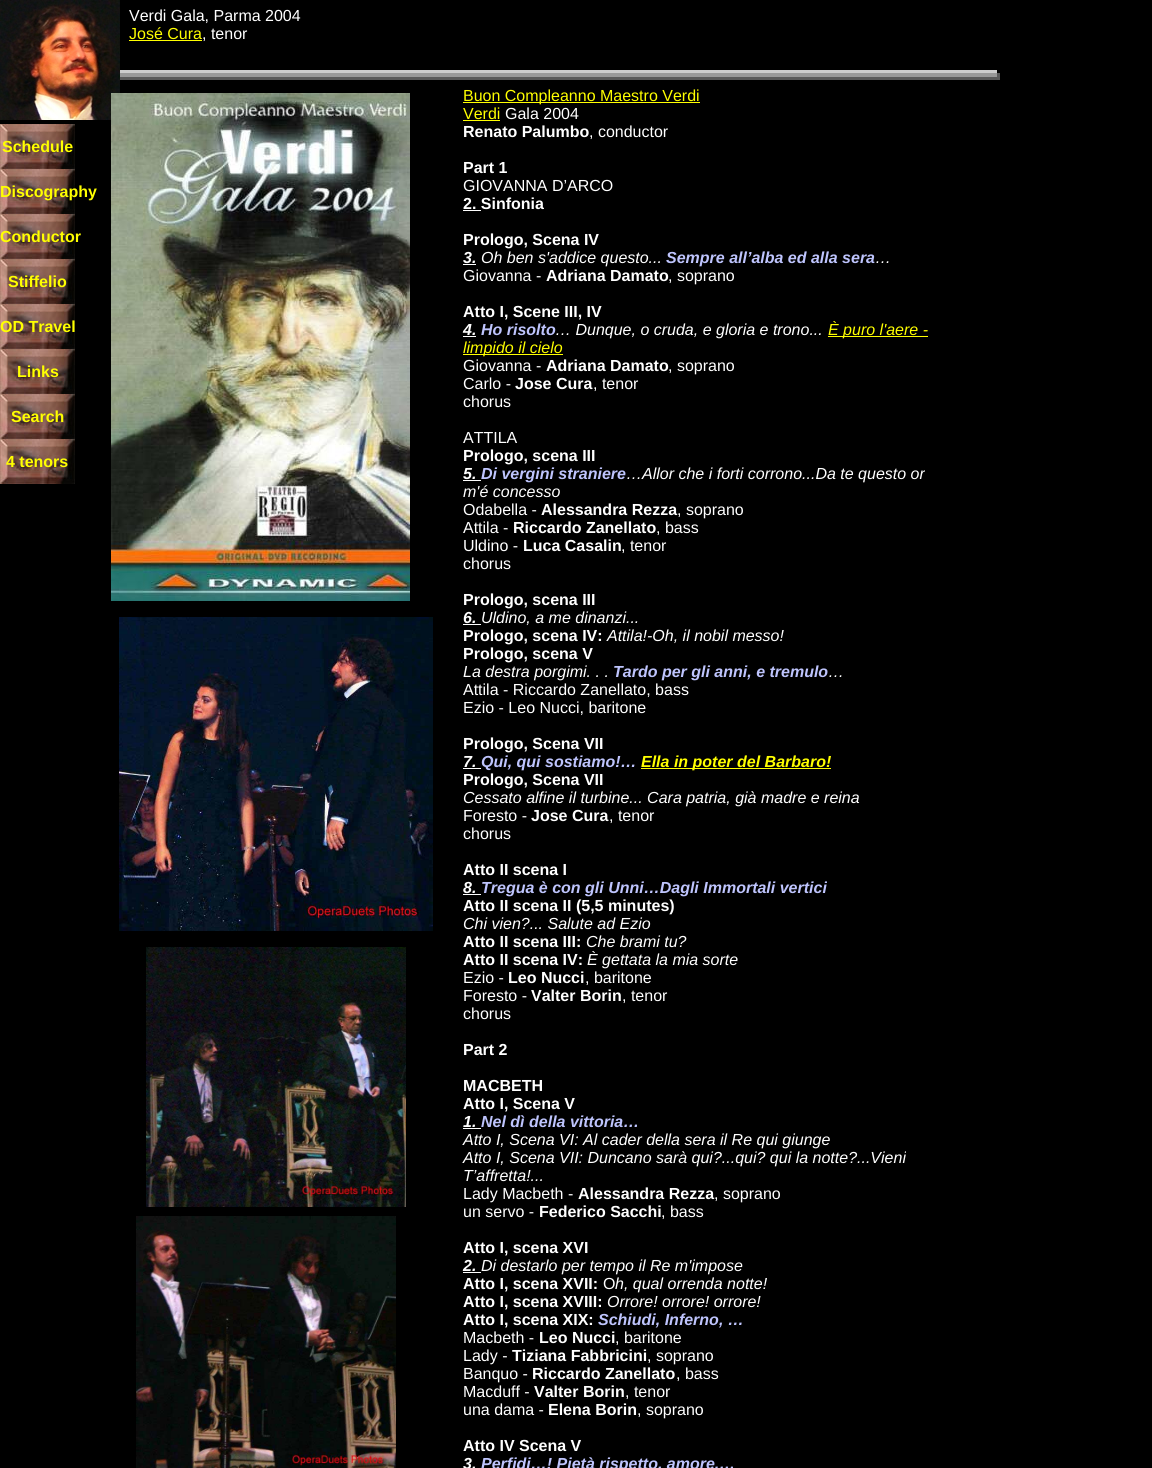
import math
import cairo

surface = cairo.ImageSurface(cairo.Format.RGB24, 1152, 1468)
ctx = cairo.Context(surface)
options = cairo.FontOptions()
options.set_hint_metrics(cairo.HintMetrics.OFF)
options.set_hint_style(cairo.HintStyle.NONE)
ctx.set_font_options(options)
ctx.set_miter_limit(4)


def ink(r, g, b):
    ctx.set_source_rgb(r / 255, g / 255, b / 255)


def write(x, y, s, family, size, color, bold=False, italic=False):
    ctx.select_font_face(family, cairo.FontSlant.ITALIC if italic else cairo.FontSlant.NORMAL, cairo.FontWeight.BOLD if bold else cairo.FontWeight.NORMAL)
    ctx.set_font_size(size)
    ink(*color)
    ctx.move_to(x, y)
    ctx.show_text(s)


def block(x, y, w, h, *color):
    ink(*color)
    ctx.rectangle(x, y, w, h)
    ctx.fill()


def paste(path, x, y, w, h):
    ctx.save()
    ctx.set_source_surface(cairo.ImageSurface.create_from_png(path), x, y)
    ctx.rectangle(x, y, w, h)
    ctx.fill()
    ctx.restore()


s1 = dict(family="Liberation Sans", size=16, color=(255, 255, 255))
s2 = dict(family="Liberation Sans", size=16, color=(255, 255, 0))
s3 = dict(family="Liberation Sans", size=16, color=(255, 255, 0), bold=True)
s4 = dict(family="Liberation Sans", size=16, color=(255, 255, 255), bold=True)
s5 = dict(family="Liberation Sans", size=16, color=(255, 255, 255), bold=True, italic=True)
s6 = dict(family="Liberation Sans", size=16, color=(255, 255, 255), italic=True)
s7 = dict(family="Liberation Sans", size=16, color=(190, 196, 253), bold=True, italic=True)
s8 = dict(family="Liberation Sans", size=16, color=(255, 255, 0), italic=True)
s9 = dict(family="Liberation Sans", size=16, color=(255, 255, 0), bold=True, italic=True)

ink(0, 0, 0)
ctx.paint()
paste("pic1.png", 0, 0, 120, 120)
write(129, 21, "Verdi Gala, Parma 2004", **s1)
write(129, 39, "José Cura", **s2)
block(129, 40, 73, 1, 255, 255, 0)
write(202, 39, ", tenor", **s1)
block(120, 70, 877, 3, 204, 204, 204)
block(120, 73, 877, 4, 153, 153, 153)
block(997, 73, 3, 4, 90, 90, 90)
block(120, 77, 880, 3, 90, 90, 90)
paste("pic2.png", 0, 124, 75, 45)
write(2, 152, "Schedule", **s3)
paste("pic2.png", 0, 169, 75, 45)
write(0, 197, "Discography", **s3)
paste("pic2.png", 0, 214, 75, 45)
write(0, 242, "Conductor", **s3)
paste("pic2.png", 0, 259, 75, 45)
write(8, 287, "Stiffelio", **s3)
paste("pic2.png", 0, 304, 75, 45)
write(0, 332, "OD Travel", **s3)
paste("pic2.png", 0, 349, 75, 45)
write(17, 377, "Links", **s3)
paste("pic2.png", 0, 394, 75, 45)
write(11, 422, "Search", **s3)
paste("pic2.png", 0, 439, 75, 45)
write(6, 467, "4 tenors", **s3)
paste("pic3.png", 111, 93, 299, 508)
block(463, 102, 237, 1, 255, 255, 0)
write(463, 101, "Buon Compleanno Maestro Verdi", **s2)
write(463, 119, "Verdi", **s2)
block(463, 120, 37, 1, 255, 255, 0)
write(505, 119, "Gala 2004", **s1)
write(463, 137, "Renato Palumbo", **s4)
write(589, 137, ", conductor", **s1)
write(463, 173, "Part 1", **s4)
write(463, 191, "GIOVANNA D’ARCO", **s1)
write(463, 209, "2. Sinfonia", **s4)
block(463, 210, 18, 1, 255, 255, 255)
write(463, 245, "Prologo, Scena IV", **s4)
write(463, 263, "3.", **s5)
block(463, 264, 13, 1, 255, 255, 255)
write(481, 263, "Oh ben s'addice questo...", **s6)
write(666, 263, "Sempre all’alba ed alla sera", **s7)
write(875, 263, "…", **s6)
write(463, 281, "Giovanna -", **s1)
write(546, 281, "Adriana Damato", **s4)
write(668, 281, ", soprano", **s1)
write(463, 317, "Atto I, Scene III, IV", **s4)
write(463, 335, "4.", **s5)
block(463, 336, 13, 1, 255, 255, 255)
write(481, 335, "Ho risolto", **s7)
write(555, 335, "… Dunque, o cruda, e gloria e trono...", **s6)
block(828, 336, 100, 1, 255, 255, 0)
write(828, 335, "È puro l'aere -", **s8)
block(463, 354, 100, 1, 255, 255, 0)
write(463, 353, "limpido il cielo", **s8)
write(463, 371, "Giovanna -", **s1)
write(546, 371, "Adriana Damato", **s4)
write(668, 371, ", soprano", **s1)
write(463, 389, "Carlo -", **s1)
write(515, 389, "Jose Cura", **s4)
write(593, 389, ", tenor", **s1)
write(463, 407, "chorus", **s1)
write(463, 443, "ATTILA", **s1)
write(463, 461, "Prologo, scena III", **s4)
write(463, 479, "5.", **s5)
block(463, 480, 18, 1, 255, 255, 255)
write(481, 479, "Di vergini straniere", **s7)
write(626, 479, "…Allor che i forti corrono...Da te questo or", **s6)
write(463, 497, "m'é concesso", **s6)
write(463, 515, "Odabella -", **s1)
write(541, 515, "Alessandra Rezza", **s4)
write(677, 515, ", soprano", **s1)
write(463, 533, "Attila -", **s1)
write(513, 533, "Riccardo Zanellato", **s4)
write(656, 533, ", bass", **s1)
write(463, 551, "Uldino -", **s1)
write(523, 551, "Luca Casalin", **s4)
write(621, 551, ", tenor", **s1)
write(463, 569, "chorus", **s1)
write(463, 605, "Prologo, scena III", **s4)
write(463, 623, "6.", **s5)
block(463, 624, 18, 1, 255, 255, 255)
write(481, 623, "Uldino, a me dinanzi...", **s6)
write(463, 641, "Prologo, scena IV:", **s4)
write(607, 641, "Attila!-Oh, il nobil messo!", **s6)
write(463, 659, "Prologo, scena V", **s4)
write(463, 677, "La destra porgimi. . .", **s6)
write(613, 677, "Tardo per gli anni, e tremulo", **s7)
write(828, 677, "…", **s6)
write(463, 695, "Attila - Riccardo Zanellato, bass", **s1)
write(463, 713, "Ezio - Leo Nucci, baritone", **s1)
write(463, 749, "Prologo, Scena VII", **s4)
write(463, 767, "7.", **s5)
block(463, 768, 18, 1, 255, 255, 255)
write(481, 767, "Qui, qui sostiamo!…", **s7)
block(641, 768, 190, 1, 255, 255, 0)
write(641, 767, "Ella in poter del Barbaro!", **s9)
write(463, 785, "Prologo, Scena VII", **s4)
write(463, 803, "Cessato alfine il turbine... Cara patria, già madre e reina", **s6)
write(463, 821, "Foresto -", **s1)
write(531, 821, "Jose Cura", **s4)
write(609, 821, ", tenor", **s1)
write(463, 839, "chorus", **s1)
write(463, 875, "Atto II scena I", **s4)
write(463, 893, "8.", **s5)
block(463, 894, 18, 1, 255, 255, 255)
write(481, 893, "Tregua è con gli Unni…Dagli Immortali vertici", **s7)
write(463, 911, "Atto II scena II (5,5 minutes)", **s4)
write(463, 929, "Chi vien?... Salute ad Ezio", **s6)
write(463, 947, "Atto II scena III:", **s4)
write(586, 947, "Che brami tu?", **s6)
write(463, 965, "Atto II scena IV:", **s4)
write(587, 965, "È gettata la mia sorte", **s6)
write(463, 983, "Ezio -", **s1)
write(508, 983, "Leo Nucci", **s4)
write(585, 983, ", baritone", **s1)
write(463, 1001, "Foresto -", **s1)
write(531, 1001, "Valter Borin", **s4)
write(622, 1001, ", tenor", **s1)
write(463, 1019, "chorus", **s1)
write(463, 1055, "Part 2", **s4)
write(463, 1091, "MACBETH", **s4)
write(463, 1109, "Atto I, Scena V", **s4)
write(463, 1127, "1.", **s5)
block(463, 1128, 18, 1, 255, 255, 255)
write(481, 1127, "Nel dì della vittoria…", **s7)
write(463, 1145, "Atto I, Scena VI: Al cader della sera il Re qui giunge", **s6)
write(463, 1163, "Atto I, Scena VII: Duncano sarà qui?...qui? qui la notte?...Vieni", **s6)
write(463, 1181, "T’affretta!...", **s6)
write(463, 1199, "Lady Macbeth -", **s1)
write(578, 1199, "Alessandra Rezza", **s4)
write(714, 1199, ", soprano", **s1)
write(463, 1217, "un servo -", **s1)
write(539, 1217, "Federico Sacchi", **s4)
write(661, 1217, ", bass", **s1)
write(463, 1253, "Atto I, scena XVI", **s4)
write(463, 1271, "2.", **s5)
block(463, 1272, 18, 1, 255, 255, 255)
write(481, 1271, "Di destarlo per tempo il Re m'impose", **s6)
write(463, 1289, "Atto I, scena XVII:", **s4)
write(603, 1289, "O", **s1)
write(615, 1289, "h, qual orrenda notte!", **s6)
write(463, 1307, "Atto I, scena XVIII:", **s4)
write(607, 1307, "Orrore! orrore! orrore!", **s6)
write(463, 1325, "Atto I, scena XIX:", **s4)
write(598, 1325, "Schiudi, Inferno, …", **s7)
write(463, 1343, "Macbeth -", **s1)
write(539, 1343, "Leo Nucci", **s4)
write(615, 1343, ", baritone", **s1)
write(463, 1361, "Lady -", **s1)
write(512, 1361, "Tiziana Fabbricini", **s4)
write(647, 1361, ", soprano", **s1)
write(463, 1379, "Banquo -", **s1)
write(532, 1379, "Riccardo Zanellato", **s4)
write(676, 1379, ", bass", **s1)
write(463, 1397, "Macduff -", **s1)
write(534, 1397, "Valter Borin", **s4)
write(625, 1397, ", tenor", **s1)
write(463, 1415, "una dama -", **s1)
write(548, 1415, "Elena Borin", **s4)
write(637, 1415, ", soprano", **s1)
write(463, 1451, "Atto IV Scena V", **s4)
write(463, 1469, "3.", **s5)
write(481, 1469, "Perfidi…! Pietà rispetto, amore,…", **s7)
paste("pic4.png", 119, 617, 314, 314)
paste("pic5.png", 146, 947, 260, 260)
paste("pic6.png", 136, 1216, 260, 252)
surface.write_to_png("screenshot.png")
